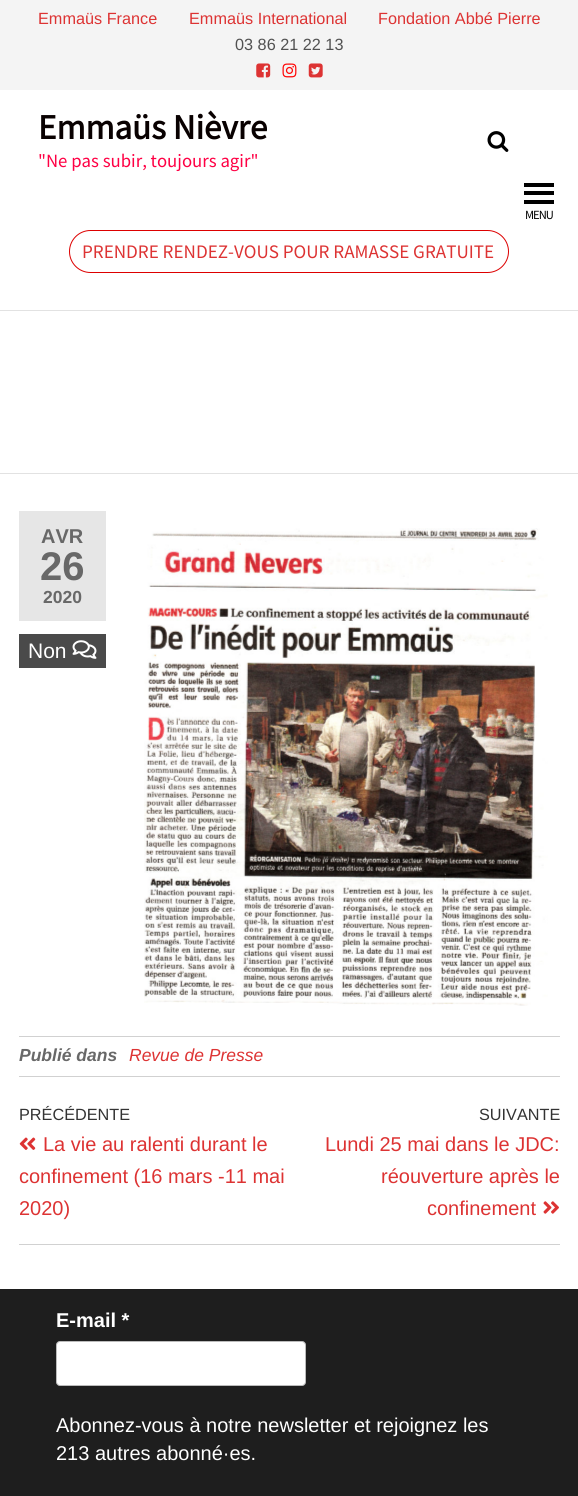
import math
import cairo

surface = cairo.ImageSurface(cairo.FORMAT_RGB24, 578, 1496)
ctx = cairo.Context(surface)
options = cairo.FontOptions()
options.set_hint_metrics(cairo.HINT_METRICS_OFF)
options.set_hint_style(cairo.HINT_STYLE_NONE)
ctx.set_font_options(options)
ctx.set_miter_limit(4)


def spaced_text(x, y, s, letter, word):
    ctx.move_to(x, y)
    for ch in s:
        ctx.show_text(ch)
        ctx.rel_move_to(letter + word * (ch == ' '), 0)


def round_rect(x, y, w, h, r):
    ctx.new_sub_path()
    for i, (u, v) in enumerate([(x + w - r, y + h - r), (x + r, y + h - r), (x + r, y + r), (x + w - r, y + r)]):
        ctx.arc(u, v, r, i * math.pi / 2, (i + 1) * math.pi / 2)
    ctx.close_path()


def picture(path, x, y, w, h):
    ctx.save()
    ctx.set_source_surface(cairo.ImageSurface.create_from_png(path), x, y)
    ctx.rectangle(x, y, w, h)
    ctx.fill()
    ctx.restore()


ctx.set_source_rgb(1, 1, 1)
ctx.paint()
ctx.set_source_rgb(0.957, 0.957, 0.957)
ctx.rectangle(0, 0, 578, 90)
ctx.fill()
ctx.select_font_face("Liberation Sans")
ctx.set_font_size(16.25)
ctx.set_source_rgb(0.867, 0.2, 0.2)
ctx.move_to(38, 24)
ctx.show_text("Emmaüs France")
ctx.move_to(189, 24)
ctx.show_text("Emmaüs International")
ctx.move_to(378, 24)
ctx.show_text("Fondation Abbé Pierre")
ctx.set_source_rgb(0.318, 0.318, 0.318)
ctx.move_to(235, 50)
ctx.show_text("03 86 21 22 13")
picture("img1.png", 256, 63, 15, 15)
picture("img2.png", 282, 63, 15, 15)
picture("img3.png", 308, 63, 15, 15)
ctx.set_source_rgb(0.886, 0.886, 0.886)
ctx.rectangle(0, 310, 578, 1)
ctx.fill()
ctx.select_font_face("Source Sans Pro", cairo.FONT_SLANT_NORMAL, cairo.FONT_WEIGHT_BOLD)
ctx.set_font_size(35)
ctx.set_source_rgb(0.039, 0.004, 0.004)
ctx.move_to(38, 139)
ctx.show_text("Emmaüs Nièvre")
ctx.select_font_face("Source Sans Pro")
ctx.set_font_size(18.75)
ctx.set_source_rgb(1, 0, 0.267)
ctx.move_to(38, 167)
ctx.show_text("\"Ne pas subir, toujours agir\"")
ctx.set_source_rgb(0, 0, 0)
ctx.rectangle(524, 183, 30, 4)
ctx.fill()
ctx.rectangle(524, 191, 30, 4)
ctx.fill()
ctx.rectangle(524, 200, 30, 4)
ctx.fill()
ctx.set_font_size(12.5)
spaced_text(525, 219, "MENU", -1, 0)
picture("img4.png", 487, 131, 22, 21)
round_rect(69.5, 230.5, 439, 42, 21)
ctx.set_source_rgb(0.867, 0, 0)
ctx.set_line_width(1)
ctx.stroke()
ctx.set_font_size(19.1)
ctx.set_source_rgb(0.867, 0.2, 0.2)
ctx.move_to(82, 258)
ctx.show_text("PRENDRE RENDEZ-VOUS POUR RAMASSE GRATUITE")
ctx.set_source_rgb(0.886, 0.886, 0.886)
ctx.rectangle(0, 473, 578, 1)
ctx.fill()
ctx.set_source_rgb(0.902, 0.902, 0.902)
ctx.rectangle(19, 511, 87, 110)
ctx.fill()
ctx.select_font_face("Liberation Sans", cairo.FONT_SLANT_NORMAL, cairo.FONT_WEIGHT_BOLD)
ctx.set_font_size(20)
ctx.set_source_rgb(0.408, 0.408, 0.408)
ctx.move_to(41, 543)
ctx.show_text("AVR")
ctx.set_font_size(40)
ctx.move_to(40, 580)
ctx.show_text("26")
ctx.set_font_size(17.5)
ctx.move_to(43, 603)
ctx.show_text("2020")
ctx.set_source_rgb(0.29, 0.29, 0.29)
ctx.rectangle(19, 634, 87, 34)
ctx.fill()
ctx.select_font_face("Liberation Sans")
ctx.set_font_size(21)
ctx.set_source_rgb(1, 1, 1)
ctx.move_to(28, 658)
ctx.show_text("Non")
picture("img5.png", 72, 640, 25, 19)
picture("img6.png", 144, 528, 404, 478)
ctx.set_source_rgb(0.82, 0.82, 0.82)
ctx.rectangle(19, 1036, 541, 1)
ctx.fill()
ctx.rectangle(19, 1076, 541, 1)
ctx.fill()
ctx.select_font_face("Liberation Sans", cairo.FONT_SLANT_ITALIC, cairo.FONT_WEIGHT_BOLD)
ctx.set_font_size(17.5)
ctx.set_source_rgb(0.408, 0.408, 0.408)
ctx.move_to(19, 1061)
ctx.show_text("Publié dans")
ctx.select_font_face("Liberation Sans", cairo.FONT_SLANT_ITALIC)
ctx.set_source_rgb(0.867, 0.2, 0.2)
ctx.move_to(129, 1061)
ctx.show_text("Revue de Presse")
ctx.set_source_rgb(0.82, 0.82, 0.82)
ctx.rectangle(19, 1244, 541, 1)
ctx.fill()
ctx.select_font_face("Liberation Sans")
ctx.set_font_size(16.25)
ctx.set_source_rgb(0.2, 0.2, 0.2)
ctx.move_to(19, 1120)
ctx.show_text("PRÉCÉDENTE")
picture("img7.png", 19, 1137, 17, 13)
ctx.set_font_size(20)
ctx.set_source_rgb(0.867, 0.2, 0.2)
ctx.move_to(43, 1151)
ctx.show_text("La vie au ralenti durant le")
ctx.move_to(19, 1183)
ctx.show_text("confinement (16 mars -11 mai")
ctx.move_to(19, 1215)
ctx.show_text("2020)")
ctx.set_font_size(16.25)
ctx.set_source_rgb(0.2, 0.2, 0.2)
ctx.move_to(479, 1120)
ctx.show_text("SUIVANTE")
ctx.set_font_size(20)
ctx.set_source_rgb(0.867, 0.2, 0.2)
ctx.move_to(325, 1151)
ctx.show_text("Lundi 25 mai dans le JDC:")
ctx.move_to(381, 1183)
ctx.show_text("réouverture après le")
ctx.move_to(427, 1215)
ctx.show_text("confinement")
picture("img8.png", 543, 1201, 16, 13)
ctx.set_source_rgb(0.118, 0.118, 0.118)
ctx.rectangle(0, 1289, 578, 207)
ctx.fill()
ctx.select_font_face("Liberation Sans", cairo.FONT_SLANT_NORMAL, cairo.FONT_WEIGHT_BOLD)
ctx.set_source_rgb(1, 1, 1)
ctx.move_to(56, 1327)
ctx.show_text("E-mail *")
round_rect(56.5, 1341.5, 249, 44, 3.5)
ctx.fill_preserve()
ctx.set_source_rgb(0.733, 0.733, 0.733)
ctx.stroke()
ctx.select_font_face("Liberation Sans")
ctx.set_source_rgb(1, 1, 1)
ctx.move_to(56, 1432)
ctx.show_text("Abonnez-vous à notre newsletter et rejoignez les")
ctx.move_to(56, 1460)
ctx.show_text("213 autres abonné·es.")
surface.write_to_png("page.png")
